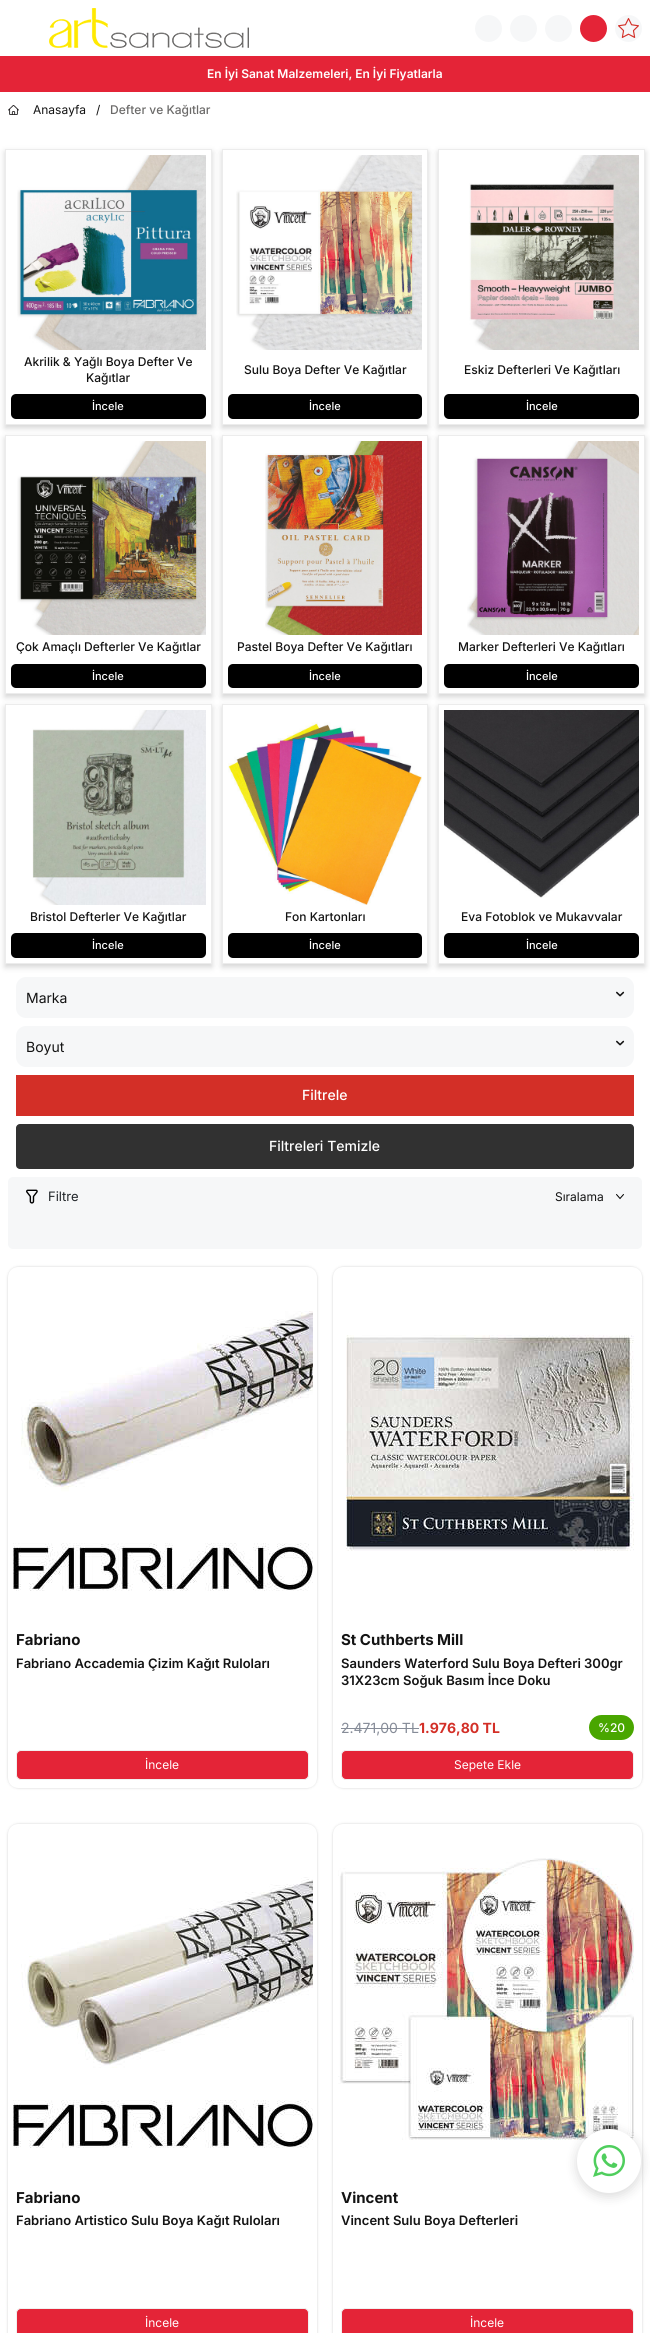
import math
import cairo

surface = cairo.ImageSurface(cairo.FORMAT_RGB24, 650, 2333)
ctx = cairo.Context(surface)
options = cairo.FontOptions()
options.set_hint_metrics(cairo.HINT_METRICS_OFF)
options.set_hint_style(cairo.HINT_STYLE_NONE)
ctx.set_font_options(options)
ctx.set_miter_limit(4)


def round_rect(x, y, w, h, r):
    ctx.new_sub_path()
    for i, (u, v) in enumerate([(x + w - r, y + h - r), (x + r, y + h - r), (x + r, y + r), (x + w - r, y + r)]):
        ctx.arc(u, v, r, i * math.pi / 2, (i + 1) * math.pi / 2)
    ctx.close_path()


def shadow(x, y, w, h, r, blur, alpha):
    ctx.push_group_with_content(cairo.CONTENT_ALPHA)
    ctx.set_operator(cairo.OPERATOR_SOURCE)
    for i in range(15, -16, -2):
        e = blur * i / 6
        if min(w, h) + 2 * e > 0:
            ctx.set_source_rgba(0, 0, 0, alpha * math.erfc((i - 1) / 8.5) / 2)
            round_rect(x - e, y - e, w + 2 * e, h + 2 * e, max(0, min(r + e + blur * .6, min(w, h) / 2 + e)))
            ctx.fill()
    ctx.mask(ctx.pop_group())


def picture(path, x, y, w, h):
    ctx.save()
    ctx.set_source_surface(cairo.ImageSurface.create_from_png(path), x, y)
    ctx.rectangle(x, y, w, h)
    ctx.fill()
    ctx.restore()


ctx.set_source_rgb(1, 1, 1)
ctx.paint()
picture("img1.png", 49, 8, 200, 40)
ctx.set_source_rgb(0.961, 0.965, 0.969)
ctx.arc(488.5, 28.5, 13.5, 0, 2 * math.pi)
ctx.fill()
ctx.arc(523.5, 28.5, 13.5, 0, 2 * math.pi)
ctx.fill()
ctx.arc(558.5, 28.5, 13.5, 0, 2 * math.pi)
ctx.fill()
ctx.set_source_rgb(0.894, 0.141, 0.216)
ctx.arc(593.5, 28.5, 13.5, 0, 2 * math.pi)
ctx.fill()
ctx.set_source_rgb(0.961, 0.965, 0.969)
ctx.arc(628.5, 28.5, 13.5, 0, 2 * math.pi)
ctx.fill()
picture("img2.png", 618, 18, 21, 20)
ctx.set_source_rgb(0.894, 0.141, 0.216)
ctx.rectangle(0, 56, 650, 36)
ctx.fill()
ctx.select_font_face("Inter SemiBold")
ctx.set_font_size(12)
ctx.set_source_rgb(1, 1, 1)
ctx.move_to(207, 78)
ctx.show_text("En İyi Sanat Malzemeleri, En İyi Fiyatlarla")
picture("img3.png", 8, 105, 11, 10)
ctx.select_font_face("Inter")
ctx.set_source_rgb(0.078, 0.078, 0.078)
ctx.move_to(33, 114)
ctx.show_text("Anasayfa")
ctx.move_to(96, 114)
ctx.show_text("/")
ctx.select_font_face("Inter Medium")
ctx.set_source_rgb(0.42, 0.416, 0.412)
ctx.move_to(110, 114)
ctx.show_text("Defter ve Kağıtlar")
ctx.save()
ctx.set_fill_rule(cairo.FILL_RULE_EVEN_ODD)
ctx.new_path()
ctx.move_to(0, 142)
ctx.line_to(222, 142)
ctx.line_to(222, 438)
ctx.line_to(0, 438)
ctx.close_path()
ctx.move_to(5, 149)
ctx.line_to(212, 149)
ctx.line_to(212, 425)
ctx.line_to(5, 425)
ctx.close_path()
ctx.clip()
ctx.set_source_rgb(0.588, 0.588, 0.588)
shadow(5, 152, 207, 276, 0, 3, 0.41)
ctx.restore()
ctx.rectangle(5.5, 149.5, 206, 275)
ctx.set_source_rgb(0.925, 0.925, 0.925)
ctx.set_line_width(1)
ctx.stroke()
picture("img4.png", 17, 155, 189, 195)
ctx.set_source_rgb(0.078, 0.078, 0.078)
ctx.move_to(24, 366)
ctx.show_text("Akrilik & Yağlı Boya Defter Ve")
ctx.move_to(86, 382)
ctx.show_text("Kağıtlar")
ctx.set_source_rgb(0, 0, 0)
round_rect(11, 394, 195, 25, 5)
ctx.fill()
ctx.set_font_size(11)
ctx.set_source_rgb(1, 1, 1)
ctx.move_to(92, 410)
ctx.show_text("İncele")
ctx.save()
ctx.set_fill_rule(cairo.FILL_RULE_EVEN_ODD)
ctx.new_path()
ctx.move_to(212, 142)
ctx.line_to(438, 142)
ctx.line_to(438, 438)
ctx.line_to(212, 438)
ctx.close_path()
ctx.move_to(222, 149)
ctx.line_to(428, 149)
ctx.line_to(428, 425)
ctx.line_to(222, 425)
ctx.close_path()
ctx.clip()
ctx.set_source_rgb(0.588, 0.588, 0.588)
shadow(222, 152, 206, 276, 0, 3, 0.41)
ctx.restore()
ctx.rectangle(222.5, 149.5, 205, 275)
ctx.set_source_rgb(0.925, 0.925, 0.925)
ctx.stroke()
picture("img5.png", 236, 155, 186, 195)
ctx.set_font_size(12)
ctx.set_source_rgb(0.078, 0.078, 0.078)
ctx.move_to(244, 374)
ctx.show_text("Sulu Boya Defter Ve Kağıtlar")
ctx.set_source_rgb(0, 0, 0)
round_rect(228, 394, 194, 25, 5)
ctx.fill()
ctx.set_font_size(11)
ctx.set_source_rgb(1, 1, 1)
ctx.move_to(309, 410)
ctx.show_text("İncele")
ctx.save()
ctx.set_fill_rule(cairo.FILL_RULE_EVEN_ODD)
ctx.new_path()
ctx.move_to(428, 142)
ctx.line_to(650, 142)
ctx.line_to(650, 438)
ctx.line_to(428, 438)
ctx.close_path()
ctx.move_to(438, 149)
ctx.line_to(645, 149)
ctx.line_to(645, 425)
ctx.line_to(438, 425)
ctx.close_path()
ctx.clip()
ctx.set_source_rgb(0.588, 0.588, 0.588)
shadow(438, 152, 207, 276, 0, 3, 0.41)
ctx.restore()
ctx.rectangle(438.5, 149.5, 206, 275)
ctx.set_source_rgb(0.925, 0.925, 0.925)
ctx.stroke()
picture("img6.png", 469, 155, 170, 195)
ctx.set_font_size(12)
ctx.set_source_rgb(0.078, 0.078, 0.078)
ctx.move_to(464, 374)
ctx.show_text("Eskiz Defterleri Ve Kağıtları")
ctx.set_source_rgb(0, 0, 0)
round_rect(444, 394, 195, 25, 5)
ctx.fill()
ctx.set_font_size(11)
ctx.set_source_rgb(1, 1, 1)
ctx.move_to(526, 410)
ctx.show_text("İncele")
ctx.save()
ctx.set_fill_rule(cairo.FILL_RULE_EVEN_ODD)
ctx.new_path()
ctx.move_to(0, 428)
ctx.line_to(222, 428)
ctx.line_to(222, 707)
ctx.line_to(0, 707)
ctx.close_path()
ctx.move_to(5, 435)
ctx.line_to(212, 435)
ctx.line_to(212, 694)
ctx.line_to(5, 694)
ctx.close_path()
ctx.clip()
ctx.set_source_rgb(0.588, 0.588, 0.588)
shadow(5, 438, 207, 259, 0, 3, 0.41)
ctx.restore()
ctx.rectangle(5.5, 435.5, 206, 258)
ctx.set_source_rgb(0.925, 0.925, 0.925)
ctx.stroke()
picture("img7.png", 17, 441, 189, 194)
ctx.set_font_size(12)
ctx.set_source_rgb(0.078, 0.078, 0.078)
ctx.move_to(16, 651)
ctx.show_text("Çok Amaçlı Defterler Ve Kağıtlar")
ctx.set_source_rgb(0, 0, 0)
round_rect(11, 664, 195, 24, 5)
ctx.fill()
ctx.set_font_size(11)
ctx.set_source_rgb(1, 1, 1)
ctx.move_to(92, 680)
ctx.show_text("İncele")
ctx.save()
ctx.set_fill_rule(cairo.FILL_RULE_EVEN_ODD)
ctx.new_path()
ctx.move_to(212, 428)
ctx.line_to(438, 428)
ctx.line_to(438, 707)
ctx.line_to(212, 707)
ctx.close_path()
ctx.move_to(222, 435)
ctx.line_to(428, 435)
ctx.line_to(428, 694)
ctx.line_to(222, 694)
ctx.close_path()
ctx.clip()
ctx.set_source_rgb(0.588, 0.588, 0.588)
shadow(222, 438, 206, 259, 0, 3, 0.41)
ctx.restore()
ctx.rectangle(222.5, 435.5, 205, 258)
ctx.set_source_rgb(0.925, 0.925, 0.925)
ctx.stroke()
picture("img8.png", 265, 441, 157, 194)
ctx.set_font_size(12)
ctx.set_source_rgb(0.078, 0.078, 0.078)
ctx.move_to(237, 651)
ctx.show_text("Pastel Boya Defter Ve Kağıtları")
ctx.set_source_rgb(0, 0, 0)
round_rect(228, 664, 194, 24, 5)
ctx.fill()
ctx.set_font_size(11)
ctx.set_source_rgb(1, 1, 1)
ctx.move_to(309, 680)
ctx.show_text("İncele")
ctx.save()
ctx.set_fill_rule(cairo.FILL_RULE_EVEN_ODD)
ctx.new_path()
ctx.move_to(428, 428)
ctx.line_to(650, 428)
ctx.line_to(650, 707)
ctx.line_to(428, 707)
ctx.close_path()
ctx.move_to(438, 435)
ctx.line_to(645, 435)
ctx.line_to(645, 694)
ctx.line_to(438, 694)
ctx.close_path()
ctx.clip()
ctx.set_source_rgb(0.588, 0.588, 0.588)
shadow(438, 438, 207, 259, 0, 3, 0.41)
ctx.restore()
ctx.rectangle(438.5, 435.5, 206, 258)
ctx.set_source_rgb(0.925, 0.925, 0.925)
ctx.stroke()
picture("img9.png", 467, 441, 172, 194)
ctx.set_font_size(12)
ctx.set_source_rgb(0.078, 0.078, 0.078)
ctx.move_to(458, 651)
ctx.show_text("Marker Defterleri Ve Kağıtları")
ctx.set_source_rgb(0, 0, 0)
round_rect(444, 664, 195, 24, 5)
ctx.fill()
ctx.set_font_size(11)
ctx.set_source_rgb(1, 1, 1)
ctx.move_to(526, 680)
ctx.show_text("İncele")
ctx.save()
ctx.set_fill_rule(cairo.FILL_RULE_EVEN_ODD)
ctx.new_path()
ctx.move_to(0, 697)
ctx.line_to(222, 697)
ctx.line_to(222, 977)
ctx.line_to(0, 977)
ctx.close_path()
ctx.move_to(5, 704)
ctx.line_to(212, 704)
ctx.line_to(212, 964)
ctx.line_to(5, 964)
ctx.close_path()
ctx.clip()
ctx.set_source_rgb(0.588, 0.588, 0.588)
shadow(5, 707, 207, 260, 0, 3, 0.41)
ctx.restore()
ctx.rectangle(5.5, 704.5, 206, 259)
ctx.set_source_rgb(0.925, 0.925, 0.925)
ctx.stroke()
picture("img10.png", 32, 710, 174, 195)
ctx.set_font_size(12)
ctx.set_source_rgb(0.078, 0.078, 0.078)
ctx.move_to(30, 921)
ctx.show_text("Bristol Defterler Ve Kağıtlar")
ctx.set_source_rgb(0, 0, 0)
round_rect(11, 933, 195, 25, 5)
ctx.fill()
ctx.set_font_size(11)
ctx.set_source_rgb(1, 1, 1)
ctx.move_to(92, 949)
ctx.show_text("İncele")
ctx.save()
ctx.set_fill_rule(cairo.FILL_RULE_EVEN_ODD)
ctx.new_path()
ctx.move_to(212, 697)
ctx.line_to(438, 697)
ctx.line_to(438, 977)
ctx.line_to(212, 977)
ctx.close_path()
ctx.move_to(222, 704)
ctx.line_to(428, 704)
ctx.line_to(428, 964)
ctx.line_to(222, 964)
ctx.close_path()
ctx.clip()
ctx.set_source_rgb(0.588, 0.588, 0.588)
shadow(222, 707, 206, 260, 0, 3, 0.41)
ctx.restore()
ctx.rectangle(222.5, 704.5, 205, 259)
ctx.set_source_rgb(0.925, 0.925, 0.925)
ctx.stroke()
picture("img11.png", 228, 722, 194, 183)
ctx.set_font_size(12)
ctx.set_source_rgb(0.078, 0.078, 0.078)
ctx.move_to(285, 921)
ctx.show_text("Fon Kartonları")
ctx.set_source_rgb(0, 0, 0)
round_rect(228, 933, 194, 25, 5)
ctx.fill()
ctx.set_font_size(11)
ctx.set_source_rgb(1, 1, 1)
ctx.move_to(309, 949)
ctx.show_text("İncele")
ctx.save()
ctx.set_fill_rule(cairo.FILL_RULE_EVEN_ODD)
ctx.new_path()
ctx.move_to(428, 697)
ctx.line_to(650, 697)
ctx.line_to(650, 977)
ctx.line_to(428, 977)
ctx.close_path()
ctx.move_to(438, 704)
ctx.line_to(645, 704)
ctx.line_to(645, 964)
ctx.line_to(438, 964)
ctx.close_path()
ctx.clip()
ctx.set_source_rgb(0.588, 0.588, 0.588)
shadow(438, 707, 207, 260, 0, 3, 0.41)
ctx.restore()
ctx.rectangle(438.5, 704.5, 206, 259)
ctx.set_source_rgb(0.925, 0.925, 0.925)
ctx.stroke()
picture("img12.png", 444, 710, 195, 188)
ctx.set_font_size(12)
ctx.set_source_rgb(0.078, 0.078, 0.078)
ctx.move_to(461, 921)
ctx.show_text("Eva Fotoblok ve Mukavvalar")
ctx.set_source_rgb(0, 0, 0)
round_rect(444, 933, 195, 25, 5)
ctx.fill()
ctx.set_font_size(11)
ctx.set_source_rgb(1, 1, 1)
ctx.move_to(526, 949)
ctx.show_text("İncele")
ctx.set_source_rgb(0.961, 0.965, 0.969)
round_rect(16, 977, 618, 41, 10)
ctx.fill()
ctx.select_font_face("Inter")
ctx.set_font_size(14)
ctx.set_source_rgb(0.078, 0.078, 0.078)
ctx.move_to(26, 1003)
ctx.show_text("Marka")
picture("img13.png", 616, 991, 9, 6)
ctx.set_source_rgb(0.961, 0.965, 0.969)
round_rect(16, 1026, 618, 41, 10)
ctx.fill()
ctx.set_source_rgb(0.078, 0.078, 0.078)
ctx.move_to(26, 1052)
ctx.show_text("Boyut")
picture("img13.png", 616, 1040, 9, 6)
ctx.set_source_rgb(0.827, 0.184, 0.153)
ctx.rectangle(16, 1075, 618, 41)
ctx.fill()
ctx.select_font_face("Inter Medium")
ctx.set_source_rgb(1, 1, 1)
ctx.move_to(302, 1100)
ctx.show_text("Filtrele")
ctx.set_source_rgb(0.192, 0.192, 0.192)
round_rect(16, 1124, 618, 45, 4)
ctx.fill()
ctx.set_source_rgb(1, 1, 1)
ctx.move_to(269, 1151)
ctx.show_text("Filtreleri Temizle")
ctx.set_source_rgb(0.961, 0.965, 0.969)
round_rect(8, 1177, 634, 72, 5)
ctx.fill()
picture("img14.png", 26, 1189, 12, 15)
ctx.select_font_face("Inter")
ctx.set_font_size(13)
ctx.set_source_rgb(0.129, 0.145, 0.161)
ctx.move_to(48, 1201)
ctx.show_text("Filtre")
picture("img15.png", 616, 1194, 8, 6)
ctx.set_font_size(12)
ctx.set_source_rgb(0.078, 0.078, 0.078)
ctx.move_to(555, 1201)
ctx.show_text("Sıralama")
ctx.set_source_rgb(0.471, 0.471, 0.471)
shadow(9, 1268, 307, 519, 9, 1.5, 0.69)
ctx.set_source_rgb(1, 1, 1)
round_rect(8, 1267, 309, 521, 10)
ctx.fill()
picture("img16.png", 13, 1311, 300, 280)
ctx.select_font_face("Inter", cairo.FONT_SLANT_NORMAL, cairo.FONT_WEIGHT_BOLD)
ctx.set_font_size(15)
ctx.set_source_rgb(0.078, 0.078, 0.078)
ctx.move_to(16, 1645)
ctx.show_text("Fabriano")
ctx.select_font_face("Inter SemiBold")
ctx.set_font_size(13)
ctx.move_to(16, 1668)
ctx.show_text("Fabriano Accademia Çizim Kağıt Ruloları")
ctx.set_source_rgb(0.894, 0.141, 0.216)
round_rect(16.5, 1750.5, 292, 29, 4.5)
ctx.fill_preserve()
ctx.set_source_rgb(0.941, 0.941, 0.941)
ctx.stroke()
ctx.select_font_face("Inter")
ctx.set_font_size(12)
ctx.set_source_rgb(1, 1, 1)
ctx.move_to(145, 1769)
ctx.show_text("İncele")
ctx.set_source_rgb(0.471, 0.471, 0.471)
shadow(334, 1268, 307, 519, 9, 1.5, 0.69)
ctx.set_source_rgb(1, 1, 1)
round_rect(333, 1267, 309, 521, 10)
ctx.fill()
picture("img17.png", 346, 1335, 288, 216)
ctx.select_font_face("Inter", cairo.FONT_SLANT_NORMAL, cairo.FONT_WEIGHT_BOLD)
ctx.set_font_size(15)
ctx.set_source_rgb(0.078, 0.078, 0.078)
ctx.move_to(341, 1645)
ctx.show_text("St Cuthberts Mill")
ctx.select_font_face("Inter SemiBold")
ctx.set_font_size(13)
ctx.move_to(341, 1668)
ctx.show_text("Saunders Waterford Sulu Boya Defteri 300gr")
ctx.move_to(341, 1685)
ctx.show_text("31X23cm Soğuk Basım İnce Doku")
ctx.select_font_face("Inter")
ctx.set_font_size(14)
ctx.set_source_rgb(0.525, 0.549, 0.596)
ctx.move_to(341, 1733)
ctx.show_text("2.471,00 TL")
ctx.rectangle(341, 1728, 78, 1)
ctx.fill()
ctx.select_font_face("Inter", cairo.FONT_SLANT_NORMAL, cairo.FONT_WEIGHT_BOLD)
ctx.set_source_rgb(0.827, 0.184, 0.153)
ctx.move_to(419, 1733)
ctx.show_text("1.976,80 TL")
ctx.set_source_rgb(0.286, 0.651, 0)
round_rect(589, 1715, 45, 25, 12.5)
ctx.fill()
ctx.select_font_face("Inter Medium")
ctx.set_font_size(12)
ctx.set_source_rgb(1, 1, 1)
ctx.move_to(598, 1732)
ctx.show_text("%20")
ctx.set_source_rgb(0.894, 0.141, 0.216)
round_rect(341.5, 1750.5, 292, 29, 4.5)
ctx.fill_preserve()
ctx.set_source_rgb(0.941, 0.941, 0.941)
ctx.stroke()
ctx.select_font_face("Inter")
ctx.set_source_rgb(1, 1, 1)
ctx.move_to(454, 1769)
ctx.show_text("Sepete Ekle")
ctx.set_source_rgb(0.471, 0.471, 0.471)
shadow(9, 1825, 307, 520, 9, 1.5, 0.69)
ctx.set_source_rgb(1, 1, 1)
round_rect(8, 1824, 309, 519, 10)
ctx.fill()
picture("img18.png", 13, 1877, 300, 271)
ctx.select_font_face("Inter", cairo.FONT_SLANT_NORMAL, cairo.FONT_WEIGHT_BOLD)
ctx.set_font_size(15)
ctx.set_source_rgb(0.078, 0.078, 0.078)
ctx.move_to(16, 2203)
ctx.show_text("Fabriano")
ctx.select_font_face("Inter SemiBold")
ctx.set_font_size(13)
ctx.move_to(16, 2225)
ctx.show_text("Fabriano Artistico Sulu Boya Kağıt Ruloları")
ctx.set_source_rgb(0.894, 0.141, 0.216)
round_rect(16.5, 2308.5, 292, 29, 4.5)
ctx.fill_preserve()
ctx.set_source_rgb(0.941, 0.941, 0.941)
ctx.stroke()
ctx.select_font_face("Inter")
ctx.set_font_size(12)
ctx.set_source_rgb(1, 1, 1)
ctx.move_to(145, 2327)
ctx.show_text("İncele")
ctx.set_source_rgb(0.471, 0.471, 0.471)
shadow(334, 1825, 307, 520, 9, 1.5, 0.69)
ctx.set_source_rgb(1, 1, 1)
round_rect(333, 1824, 309, 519, 10)
ctx.fill()
picture("img19.png", 338, 1858, 296, 282)
ctx.select_font_face("Inter", cairo.FONT_SLANT_NORMAL, cairo.FONT_WEIGHT_BOLD)
ctx.set_font_size(15)
ctx.set_source_rgb(0.078, 0.078, 0.078)
ctx.move_to(341, 2203)
ctx.show_text("Vincent")
ctx.select_font_face("Inter SemiBold")
ctx.set_font_size(13)
ctx.move_to(341, 2225)
ctx.show_text("Vincent Sulu Boya Defterleri")
ctx.set_source_rgb(0.894, 0.141, 0.216)
round_rect(341.5, 2308.5, 292, 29, 4.5)
ctx.fill_preserve()
ctx.set_source_rgb(0.941, 0.941, 0.941)
ctx.stroke()
ctx.select_font_face("Inter")
ctx.set_font_size(12)
ctx.set_source_rgb(1, 1, 1)
ctx.move_to(470, 2327)
ctx.show_text("İncele")
ctx.set_source_rgb(0, 0, 0)
shadow(577, 2132, 64, 64, 32, 6, 0.15)
ctx.set_source_rgb(1, 1, 1)
ctx.arc(609, 2161, 32, 0, 2 * math.pi)
ctx.fill()
picture("img20.png", 593, 2145, 32, 32)
surface.write_to_png("page.png")
